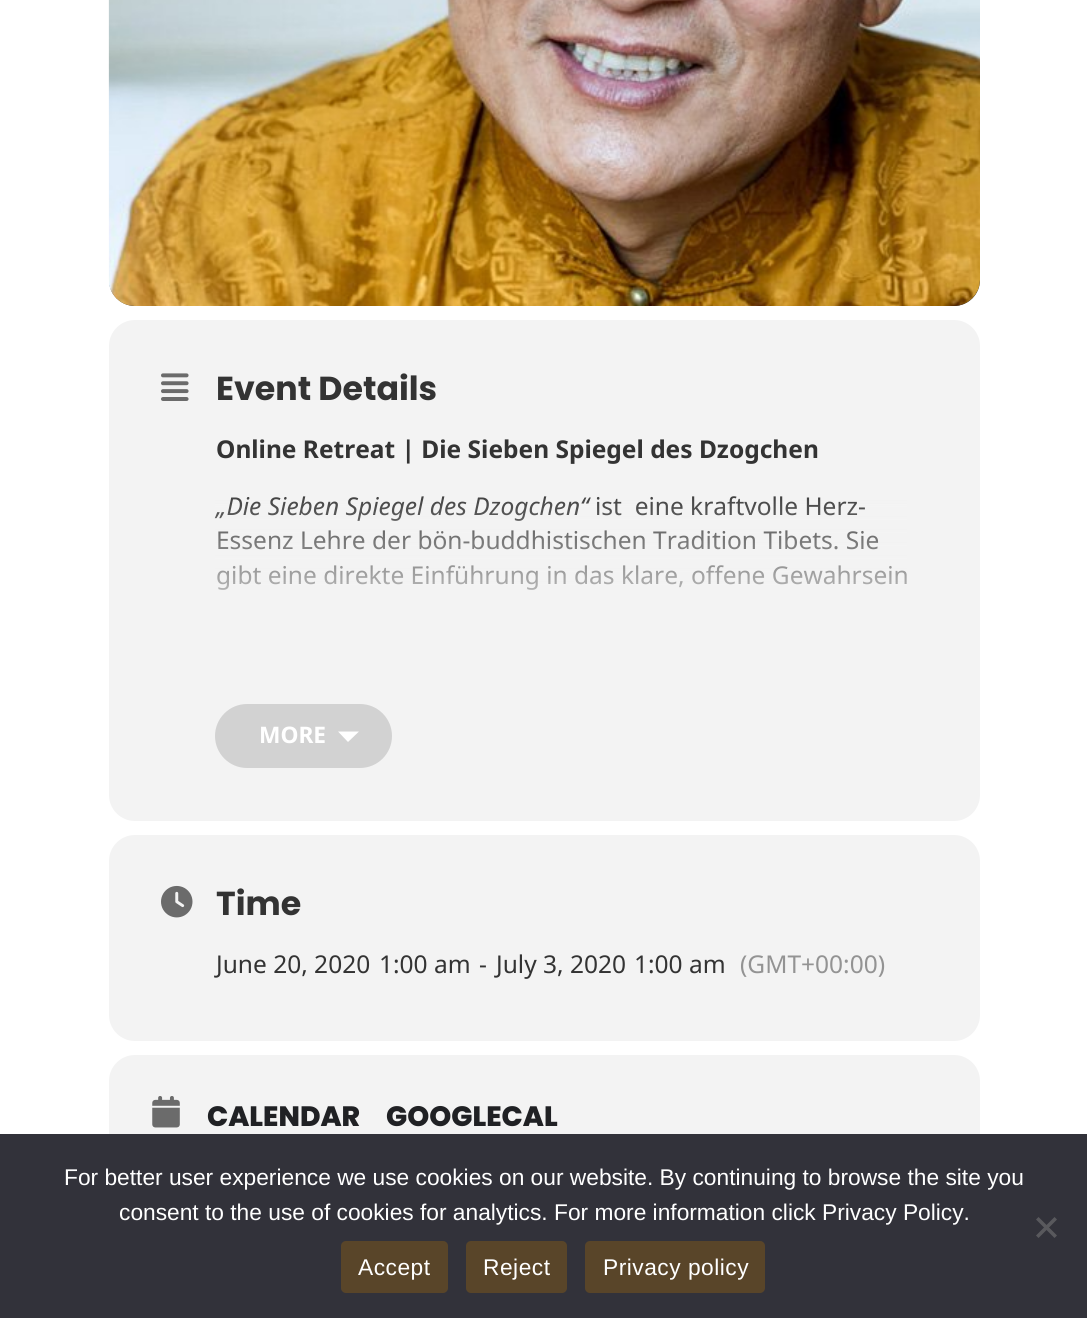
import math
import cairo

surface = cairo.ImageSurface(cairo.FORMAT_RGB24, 1087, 1318)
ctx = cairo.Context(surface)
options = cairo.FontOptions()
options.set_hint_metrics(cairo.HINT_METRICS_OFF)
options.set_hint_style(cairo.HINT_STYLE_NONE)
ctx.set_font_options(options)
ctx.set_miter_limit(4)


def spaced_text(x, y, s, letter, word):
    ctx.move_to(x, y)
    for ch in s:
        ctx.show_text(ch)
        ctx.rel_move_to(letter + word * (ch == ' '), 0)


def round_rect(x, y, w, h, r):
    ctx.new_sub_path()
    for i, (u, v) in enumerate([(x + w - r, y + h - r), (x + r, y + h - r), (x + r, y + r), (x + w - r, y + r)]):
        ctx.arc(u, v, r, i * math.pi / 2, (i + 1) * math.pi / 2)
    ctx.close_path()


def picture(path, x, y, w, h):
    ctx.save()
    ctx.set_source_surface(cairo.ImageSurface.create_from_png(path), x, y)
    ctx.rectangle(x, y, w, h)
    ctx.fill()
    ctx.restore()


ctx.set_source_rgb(1, 1, 1)
ctx.paint()
ctx.set_source_rgb(0.2, 0.2, 0.2)
round_rect(109, -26, 871, 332, 26)
ctx.fill()
picture("img1.png", 108, 0, 872, 306)
ctx.set_source_rgb(0.953, 0.953, 0.953)
round_rect(109, 320, 871, 501, 26)
ctx.fill()
picture("img2.png", 161, 373, 28, 28)
ctx.select_font_face("Poppins", cairo.FONT_SLANT_NORMAL, cairo.FONT_WEIGHT_BOLD)
ctx.set_font_size(33.25)
ctx.set_source_rgb(0.2, 0.2, 0.2)
ctx.move_to(216, 400)
ctx.show_text("Event Details")
ctx.select_font_face("Noto Sans", cairo.FONT_SLANT_NORMAL, cairo.FONT_WEIGHT_BOLD)
ctx.set_font_size(24.5)
ctx.move_to(216, 458)
ctx.show_text("Online Retreat | Die Sieben Spiegel des Dzogchen")
ctx.select_font_face("Noto Sans", cairo.FONT_SLANT_ITALIC)
ctx.move_to(216, 515)
ctx.show_text("„Die Sieben Spiegel des Dzogchen“")
ctx.select_font_face("Noto Sans")
ctx.move_to(595, 515)
ctx.show_text("ist  eine kraftvolle Herz-")
ctx.move_to(216, 549)
ctx.show_text("Essenz Lehre der bön-buddhistischen Tradition Tibets. Sie")
ctx.move_to(216, 584)
ctx.show_text("gibt eine direkte Einführung in das klare, offene Gewahrsein")
gradient = cairo.LinearGradient(571, 695, 571, 432)
gradient.add_color_stop_rgba(0.2, 0.953, 0.953, 0.953, 1)
gradient.add_color_stop_rgba(0.8, 0.953, 0.953, 0.953, 0)
ctx.set_source(gradient)
ctx.rectangle(215, 496, 692, 94)
ctx.fill()
ctx.set_source_rgb(0.824, 0.824, 0.824)
round_rect(215, 704, 177, 64, 32)
ctx.fill()
ctx.select_font_face("Noto Sans", cairo.FONT_SLANT_NORMAL, cairo.FONT_WEIGHT_BOLD)
ctx.set_font_size(22.75)
ctx.set_source_rgb(1, 1, 1)
ctx.move_to(259, 743)
ctx.show_text("MORE")
ctx.new_path()
ctx.move_to(338, 731.5)
ctx.line_to(359, 731.5)
ctx.line_to(348, 742)
ctx.close_path()
ctx.fill()
ctx.set_source_rgb(0.953, 0.953, 0.953)
round_rect(109, 835, 871, 206, 26)
ctx.fill()
picture("img3.png", 161, 885, 32, 33)
ctx.select_font_face("Poppins", cairo.FONT_SLANT_NORMAL, cairo.FONT_WEIGHT_BOLD)
ctx.set_font_size(33.25)
ctx.set_source_rgb(0.2, 0.2, 0.2)
ctx.move_to(216, 915)
ctx.show_text("Time")
ctx.select_font_face("Noto Sans")
ctx.set_font_size(24.5)
ctx.move_to(216, 973)
ctx.show_text("June 20, 2020")
ctx.move_to(379, 973)
ctx.show_text("1:00 am")
ctx.move_to(479, 973)
ctx.show_text("-")
ctx.move_to(496, 973)
ctx.show_text("July 3, 2020")
ctx.move_to(634, 973)
ctx.show_text("1:00 am")
ctx.set_source_rgb(0.576, 0.576, 0.576)
ctx.move_to(740, 973)
ctx.show_text("(GMT+00:00)")
ctx.set_source_rgb(0.953, 0.953, 0.953)
round_rect(109, 1055, 871, 114, 26)
ctx.fill()
picture("img4.png", 152, 1096, 28, 32)
ctx.select_font_face("Poppins ExtraBold")
ctx.set_font_size(28)
ctx.set_source_rgb(0.125, 0.129, 0.141)
ctx.move_to(207, 1126)
ctx.show_text("CALENDAR")
ctx.move_to(386, 1126)
ctx.show_text("GOOGLECAL")
ctx.set_source_rgb(0.196, 0.196, 0.227)
ctx.rectangle(0, 1134, 1087, 184)
ctx.fill()
ctx.select_font_face("Liberation Sans")
ctx.set_font_size(22.75)
ctx.set_source_rgb(1, 1, 1)
ctx.move_to(64, 1185)
ctx.show_text("For better user experience we use cookies on our website. By continuing to browse the site you")
ctx.move_to(119, 1220)
ctx.show_text("consent to the use of cookies for analytics. For more information click Privacy Policy.")
ctx.set_source_rgb(0.349, 0.349, 0.365)
ctx.new_path()
ctx.move_to(1054.5, 1217)
ctx.line_to(1057, 1219.5)
ctx.line_to(1038.5, 1238)
ctx.line_to(1036, 1235.5)
ctx.close_path()
ctx.fill()
ctx.new_path()
ctx.move_to(1036, 1219.5)
ctx.line_to(1038.5, 1217)
ctx.line_to(1057, 1235.5)
ctx.line_to(1054.5, 1238)
ctx.close_path()
ctx.fill()
ctx.set_source_rgb(0.349, 0.271, 0.161)
round_rect(341, 1241, 107, 52, 5)
ctx.fill()
ctx.set_source_rgb(1, 1, 1)
spaced_text(358, 1275, "Accept", 0.5, 0)
ctx.set_source_rgb(0.349, 0.271, 0.161)
round_rect(466, 1241, 101, 52, 5)
ctx.fill()
ctx.set_source_rgb(1, 1, 1)
spaced_text(483, 1275, "Reject", 0.5, 0)
ctx.set_source_rgb(0.349, 0.271, 0.161)
round_rect(585, 1241, 180, 52, 5)
ctx.fill()
ctx.set_source_rgb(1, 1, 1)
spaced_text(603, 1275, "Privacy policy", 0.5, 0)
surface.write_to_png("page.png")
